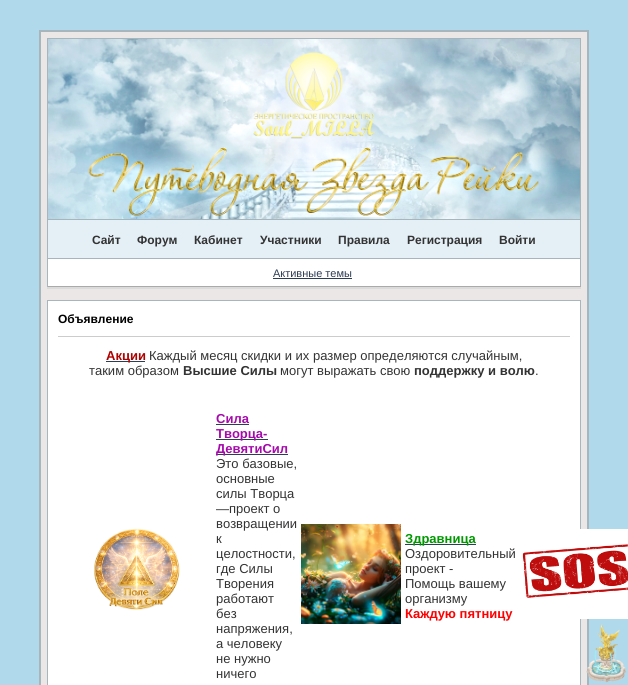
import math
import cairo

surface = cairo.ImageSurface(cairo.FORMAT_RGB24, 628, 685)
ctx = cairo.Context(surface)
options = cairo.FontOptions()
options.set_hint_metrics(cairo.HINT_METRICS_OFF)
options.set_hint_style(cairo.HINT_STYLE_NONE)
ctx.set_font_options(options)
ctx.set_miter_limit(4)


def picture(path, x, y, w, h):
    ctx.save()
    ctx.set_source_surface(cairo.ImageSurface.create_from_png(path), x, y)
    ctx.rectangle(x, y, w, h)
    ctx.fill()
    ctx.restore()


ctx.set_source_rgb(0.69, 0.851, 0.925)
ctx.paint()
ctx.set_source_rgb(0.918, 0.906, 0.906)
ctx.rectangle(40, 31, 548, 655)
ctx.fill_preserve()
ctx.set_source_rgb(0.655, 0.71, 0.741)
ctx.stroke()
picture("img1.png", 48, 39, 532, 180)
ctx.rectangle(580, 219, 1, 39)
ctx.fill()
ctx.rectangle(47, 219, 1, 39)
ctx.fill()
ctx.rectangle(47.5, 38.5, 533, 181)
ctx.set_line_width(1)
ctx.stroke()
picture("img2.png", 586, 624, 41, 59)
ctx.set_source_rgb(0.894, 0.937, 0.961)
ctx.rectangle(48, 220, 532, 38)
ctx.fill()
ctx.select_font_face("Liberation Sans", cairo.FONT_SLANT_NORMAL, cairo.FONT_WEIGHT_BOLD)
ctx.set_font_size(12)
ctx.set_source_rgb(0.2, 0.2, 0.2)
ctx.move_to(92, 244)
ctx.show_text("Сайт")
ctx.move_to(137, 244)
ctx.show_text("Форум")
ctx.move_to(194, 244)
ctx.show_text("Кабинет")
ctx.move_to(260, 244)
ctx.show_text("Участники")
ctx.move_to(338, 244)
ctx.show_text("Правила")
ctx.move_to(407, 244)
ctx.show_text("Регистрация")
ctx.move_to(499, 244)
ctx.show_text("Войти")
ctx.set_source_rgb(0.859, 0.859, 0.859)
ctx.rectangle(47, 287, 534, 2)
ctx.fill()
ctx.set_source_rgb(1, 1, 1)
ctx.rectangle(48, 259, 532, 27)
ctx.fill()
ctx.set_source_rgb(0.655, 0.71, 0.741)
ctx.rectangle(47, 258, 534, 1)
ctx.fill()
ctx.rectangle(580, 258, 1, 29)
ctx.fill()
ctx.set_source_rgb(0.667, 0.667, 0.667)
ctx.rectangle(47, 286, 534, 1)
ctx.fill()
ctx.set_source_rgb(0.655, 0.71, 0.741)
ctx.rectangle(47, 258, 1, 29)
ctx.fill()
ctx.select_font_face("Liberation Sans")
ctx.set_font_size(11)
ctx.set_source_rgb(0.176, 0.239, 0.329)
ctx.move_to(273, 277)
ctx.show_text("Активные темы")
ctx.rectangle(273, 278, 79, 1)
ctx.fill()
ctx.set_source_rgb(1, 1, 1)
ctx.rectangle(48, 301, 532, 384)
ctx.fill()
ctx.set_source_rgb(0.8, 0.8, 0.8)
ctx.rectangle(58, 336, 512, 1)
ctx.fill()
ctx.select_font_face("Liberation Sans", cairo.FONT_SLANT_NORMAL, cairo.FONT_WEIGHT_BOLD)
ctx.set_font_size(12)
ctx.set_source_rgb(0, 0, 0)
ctx.move_to(58, 323)
ctx.show_text("Объявление")
ctx.set_source_rgb(0.655, 0.71, 0.741)
ctx.rectangle(47, 300, 534, 1)
ctx.fill()
ctx.rectangle(580, 300, 1, 385)
ctx.fill()
ctx.rectangle(47, 300, 1, 385)
ctx.fill()
ctx.set_source_rgb(0.176, 0.239, 0.329)
ctx.rectangle(106, 361, 39, 1)
ctx.fill()
ctx.set_font_size(13)
ctx.set_source_rgb(0.69, 0, 0)
ctx.move_to(106, 360)
ctx.show_text("Акции")
ctx.select_font_face("Liberation Sans")
ctx.set_source_rgb(0.2, 0.2, 0.2)
ctx.move_to(149, 360)
ctx.show_text("Каждый месяц скидки и их размер определяются случайным,")
ctx.move_to(89, 375)
ctx.show_text("таким образом")
ctx.select_font_face("Liberation Sans", cairo.FONT_SLANT_NORMAL, cairo.FONT_WEIGHT_BOLD)
ctx.move_to(183, 375)
ctx.show_text("Высшие Силы")
ctx.select_font_face("Liberation Sans")
ctx.move_to(280, 375)
ctx.show_text("могут выражать свою")
ctx.select_font_face("Liberation Sans", cairo.FONT_SLANT_NORMAL, cairo.FONT_WEIGHT_BOLD)
ctx.move_to(414, 375)
ctx.show_text("поддержку и волю")
ctx.select_font_face("Liberation Sans")
ctx.move_to(535, 375)
ctx.show_text(".")
picture("img3.png", 94, 528, 86, 82)
ctx.select_font_face("Liberation Sans", cairo.FONT_SLANT_NORMAL, cairo.FONT_WEIGHT_BOLD)
ctx.set_source_rgb(0.647, 0.043, 0.671)
ctx.move_to(216, 423)
ctx.show_text("Сила")
ctx.set_source_rgb(0.176, 0.239, 0.329)
ctx.rectangle(216, 424, 33, 1)
ctx.fill()
ctx.rectangle(216, 439, 52, 1)
ctx.fill()
ctx.set_source_rgb(0.647, 0.043, 0.671)
ctx.move_to(216, 438)
ctx.show_text("Творца-")
ctx.set_source_rgb(0.176, 0.239, 0.329)
ctx.rectangle(216, 454, 72, 1)
ctx.fill()
ctx.set_source_rgb(0.647, 0.043, 0.671)
ctx.move_to(216, 453)
ctx.show_text("ДевятиСил")
ctx.select_font_face("Liberation Sans")
ctx.set_source_rgb(0.2, 0.2, 0.2)
ctx.move_to(216, 468)
ctx.show_text("Это базовые,")
ctx.move_to(216, 483)
ctx.show_text("основные")
ctx.move_to(216, 498)
ctx.show_text("силы Творца")
ctx.move_to(216, 513)
ctx.show_text("—проект о")
ctx.move_to(216, 528)
ctx.show_text("возвращении")
ctx.move_to(216, 543)
ctx.show_text("к")
ctx.move_to(216, 558)
ctx.show_text("целостности,")
ctx.move_to(216, 573)
ctx.show_text("где Силы")
ctx.move_to(216, 588)
ctx.show_text("Творения")
ctx.move_to(216, 603)
ctx.show_text("работают")
ctx.move_to(216, 618)
ctx.show_text("без")
ctx.move_to(216, 633)
ctx.show_text("напряжения,")
ctx.move_to(216, 648)
ctx.show_text("а человеку")
ctx.move_to(216, 663)
ctx.show_text("не нужно")
ctx.move_to(216, 678)
ctx.show_text("ничего")
picture("img4.png", 301, 524, 100, 100)
ctx.set_source_rgb(0.176, 0.239, 0.329)
ctx.rectangle(405, 544, 71, 1)
ctx.fill()
ctx.select_font_face("Liberation Sans", cairo.FONT_SLANT_NORMAL, cairo.FONT_WEIGHT_BOLD)
ctx.set_source_rgb(0, 0.596, 0)
ctx.move_to(405, 543)
ctx.show_text("Здравница")
ctx.select_font_face("Liberation Sans")
ctx.set_source_rgb(0.2, 0.2, 0.2)
ctx.move_to(405, 558)
ctx.show_text("Оздоровительный")
ctx.move_to(405, 573)
ctx.show_text("проект -")
ctx.move_to(405, 588)
ctx.show_text("Помощь вашему")
ctx.move_to(405, 603)
ctx.show_text("организму")
ctx.select_font_face("Liberation Sans", cairo.FONT_SLANT_NORMAL, cairo.FONT_WEIGHT_BOLD)
ctx.set_source_rgb(1, 0, 0)
ctx.move_to(405, 618)
ctx.show_text("Каждую пятницу")
picture("img5.png", 522, 529, 106, 90)
surface.write_to_png("page.png")
